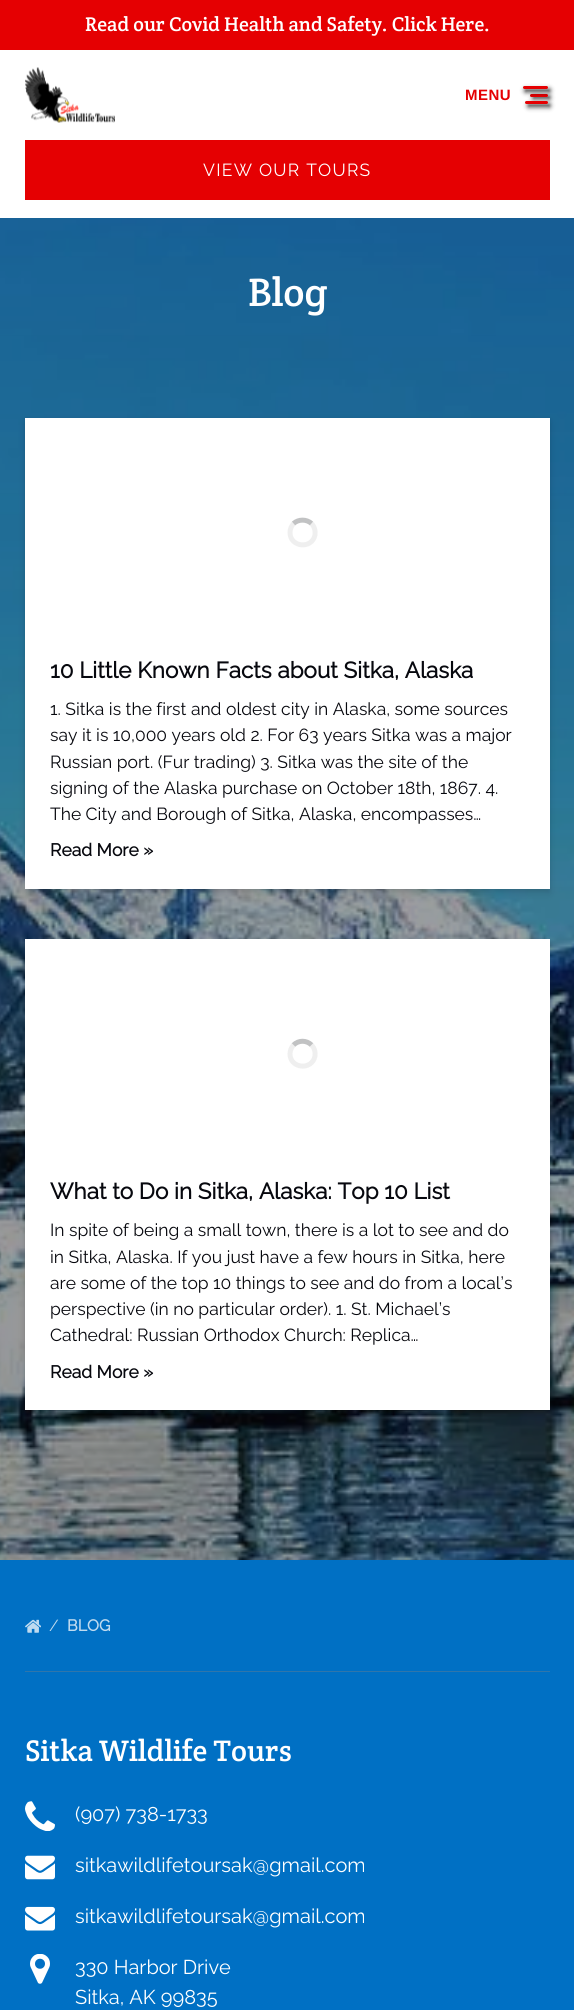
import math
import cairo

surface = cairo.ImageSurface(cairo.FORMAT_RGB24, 574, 2010)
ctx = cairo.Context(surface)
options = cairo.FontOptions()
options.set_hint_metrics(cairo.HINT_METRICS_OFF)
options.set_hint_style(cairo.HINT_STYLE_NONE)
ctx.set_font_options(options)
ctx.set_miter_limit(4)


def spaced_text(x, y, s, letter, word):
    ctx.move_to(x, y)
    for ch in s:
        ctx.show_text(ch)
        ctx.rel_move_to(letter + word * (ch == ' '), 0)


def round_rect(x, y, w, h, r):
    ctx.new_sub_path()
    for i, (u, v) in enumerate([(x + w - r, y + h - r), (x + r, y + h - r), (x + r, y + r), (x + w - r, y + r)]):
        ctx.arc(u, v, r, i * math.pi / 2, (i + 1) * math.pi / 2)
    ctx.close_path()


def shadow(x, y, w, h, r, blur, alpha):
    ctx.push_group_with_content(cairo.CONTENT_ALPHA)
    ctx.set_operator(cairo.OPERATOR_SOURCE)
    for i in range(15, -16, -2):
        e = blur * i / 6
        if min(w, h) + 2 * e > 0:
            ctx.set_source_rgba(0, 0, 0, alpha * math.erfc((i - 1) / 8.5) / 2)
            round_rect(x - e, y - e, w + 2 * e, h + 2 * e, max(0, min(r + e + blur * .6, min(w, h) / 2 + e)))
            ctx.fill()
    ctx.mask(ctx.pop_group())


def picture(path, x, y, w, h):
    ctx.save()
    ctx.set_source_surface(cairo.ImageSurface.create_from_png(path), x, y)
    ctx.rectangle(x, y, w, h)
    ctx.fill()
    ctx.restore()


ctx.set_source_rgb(1, 1, 1)
ctx.paint()
ctx.set_source_rgb(0.898, 0, 0.008)
ctx.rectangle(0, 0, 574, 50)
ctx.fill()
ctx.select_font_face("Crete Round")
ctx.set_font_size(20)
ctx.set_source_rgb(1, 1, 1)
ctx.move_to(85, 31)
ctx.show_text("Read our Covid Health and Safety. Click Here.")
picture("img1.png", 25, 67, 90, 56)
ctx.select_font_face("Liberation Sans", cairo.FONT_SLANT_NORMAL, cairo.FONT_WEIGHT_BOLD)
ctx.set_font_size(15)
ctx.set_source_rgb(0.898, 0, 0.008)
spaced_text(465, 100, "MENU", 0.5, 0)
ctx.set_source_rgb(0, 0, 0)
shadow(533, 96, 17, 3, 1.5, 2.5, 0.75)
ctx.set_source_rgb(0.898, 0, 0.008)
round_rect(530, 94, 18, 3, 1.5)
ctx.fill()
ctx.set_source_rgb(0, 0, 0)
shadow(525, 89, 25, 3, 1.5, 2.5, 0.75)
ctx.set_source_rgb(0.898, 0, 0.008)
round_rect(523, 86, 25, 3, 1.5)
ctx.fill()
ctx.set_source_rgb(0, 0, 0)
shadow(528, 104, 22, 3, 1.5, 2.5, 0.75)
ctx.set_source_rgb(0.898, 0, 0.008)
round_rect(525, 101, 23, 3, 1.5)
ctx.fill()
ctx.rectangle(25, 140, 525, 60)
ctx.fill()
ctx.select_font_face("Raleway Thin")
ctx.set_font_size(17.5)
ctx.set_source_rgb(1, 1, 1)
spaced_text(203, 176, "VIEW OUR TOURS", 1.25, 0)
picture("img2.png", 0, 218, 574, 1342)
ctx.select_font_face("Crete Round")
ctx.set_font_size(40)
ctx.move_to(248, 306)
ctx.show_text("Blog")
ctx.set_source_rgb(0, 0, 0)
shadow(25, 423, 525, 471, 0, 4, 0.1)
shadow(25, 419, 525, 471, 0, 2, 0.08)
ctx.set_source_rgb(1, 1, 1)
ctx.rectangle(25, 418, 525, 471)
ctx.fill()
ctx.new_path()
ctx.move_to(293.5, 523.5)
ctx.curve_to(298.5, 519, 306.5, 519, 311.5, 523.5)
ctx.set_source_rgb(0.757, 0.761, 0.765)
ctx.set_line_width(5)
ctx.stroke()
ctx.new_path()
ctx.move_to(311.5, 523.5)
ctx.curve_to(314.5, 526.5, 315.5, 531, 315, 535)
ctx.curve_to(312, 549.5, 290, 547.5, 290, 532.5)
ctx.curve_to(290, 529, 291.5, 526, 293.5, 523.5)
ctx.set_source_rgba(0.757, 0.761, 0.765, 0.25)
ctx.stroke()
ctx.select_font_face("Raleway", cairo.FONT_SLANT_NORMAL, cairo.FONT_WEIGHT_BOLD)
ctx.set_font_size(22.5)
ctx.set_source_rgb(0.031, 0.035, 0.055)
ctx.move_to(50, 678)
ctx.show_text("10 Little Known Facts about Sitka, Alaska")
ctx.select_font_face("Raleway Thin")
ctx.set_font_size(17.5)
ctx.move_to(50, 715)
ctx.show_text("1. Sitka is the first and oldest city in Alaska, some sources")
ctx.move_to(50, 741)
ctx.show_text("say it is 10,000 years old 2. For 63 years Sitka was a major")
ctx.move_to(50, 768)
ctx.show_text("Russian port. (Fur trading) 3. Sitka was the site of the")
ctx.move_to(50, 794)
ctx.show_text("signing of the Alaska purchase on October 18th, 1867. 4.")
ctx.move_to(50, 820)
ctx.show_text("The City and Borough of Sitka, Alaska, encompasses…")
ctx.select_font_face("Raleway", cairo.FONT_SLANT_NORMAL, cairo.FONT_WEIGHT_BOLD)
ctx.move_to(50, 856)
ctx.show_text("Read More »")
ctx.set_source_rgb(0, 0, 0)
shadow(25, 944, 525, 471, 0, 4, 0.1)
shadow(25, 940, 525, 471, 0, 2, 0.08)
ctx.set_source_rgb(1, 1, 1)
ctx.rectangle(25, 939, 525, 471)
ctx.fill()
ctx.new_path()
ctx.move_to(293.5, 1045)
ctx.curve_to(298.5, 1040, 306.5, 1040, 311.5, 1045)
ctx.set_source_rgb(0.757, 0.761, 0.765)
ctx.stroke()
ctx.new_path()
ctx.move_to(311.5, 1045)
ctx.curve_to(314.5, 1048, 315.5, 1052, 315, 1056)
ctx.curve_to(312, 1071, 290, 1068.5, 290, 1054)
ctx.curve_to(290, 1050.5, 291.5, 1047, 293.5, 1045)
ctx.set_source_rgba(0.757, 0.761, 0.765, 0.25)
ctx.stroke()
ctx.set_font_size(22.5)
ctx.set_source_rgb(0.031, 0.035, 0.055)
ctx.move_to(50, 1199)
ctx.show_text("What to Do in Sitka, Alaska: Top 10 List")
ctx.select_font_face("Raleway Thin")
ctx.set_font_size(17.5)
ctx.move_to(50, 1236)
ctx.show_text("In spite of being a small town, there is a lot to see and do")
ctx.move_to(50, 1263)
ctx.show_text("in Sitka, Alaska. If you just have a few hours in Sitka, here")
ctx.move_to(50, 1289)
ctx.show_text("are some of the top 10 things to see and do from a local’s")
ctx.move_to(50, 1315)
ctx.show_text("perspective (in no particular order). 1. St. Michael’s")
ctx.move_to(50, 1341)
ctx.show_text("Cathedral: Russian Orthodox Church: Replica…")
ctx.select_font_face("Raleway", cairo.FONT_SLANT_NORMAL, cairo.FONT_WEIGHT_BOLD)
ctx.move_to(50, 1378)
ctx.show_text("Read More »")
ctx.set_source_rgb(0, 0.439, 0.769)
ctx.rectangle(0, 1560, 574, 450)
ctx.fill()
picture("img3.png", 25, 1619, 16, 14)
ctx.select_font_face("Raleway Thin")
ctx.set_font_size(16)
ctx.set_source_rgb(0.749, 0.859, 0.941)
ctx.move_to(49, 1631)
ctx.show_text("/")
ctx.select_font_face("Raleway", cairo.FONT_SLANT_NORMAL, cairo.FONT_WEIGHT_BOLD)
ctx.move_to(67, 1631)
ctx.show_text("BLOG")
ctx.set_source_rgb(0.188, 0.463, 0.671)
ctx.rectangle(25, 1671, 525, 1)
ctx.fill()
ctx.select_font_face("Crete Round")
ctx.set_font_size(30)
ctx.set_source_rgb(1, 1, 1)
ctx.move_to(25, 1761)
ctx.show_text("Sitka Wildlife Tours")
picture("img4.png", 25, 1801, 30, 30)
ctx.select_font_face("Raleway Thin")
ctx.set_font_size(20)
ctx.move_to(75, 1821)
ctx.show_text("(907) 738-1733")
picture("img5.png", 25, 1855, 30, 25)
ctx.move_to(75, 1872)
ctx.show_text("sitkawildlifetoursak@gmail.com")
picture("img6.png", 25, 1906, 30, 25)
ctx.move_to(75, 1923)
ctx.show_text("sitkawildlifetoursak@gmail.com")
picture("img7.png", 30, 1954, 20, 30)
ctx.move_to(75, 1974)
ctx.show_text("330 Harbor Drive")
ctx.move_to(75, 2004)
ctx.show_text("Sitka, AK 99835")
surface.write_to_png("page.png")
